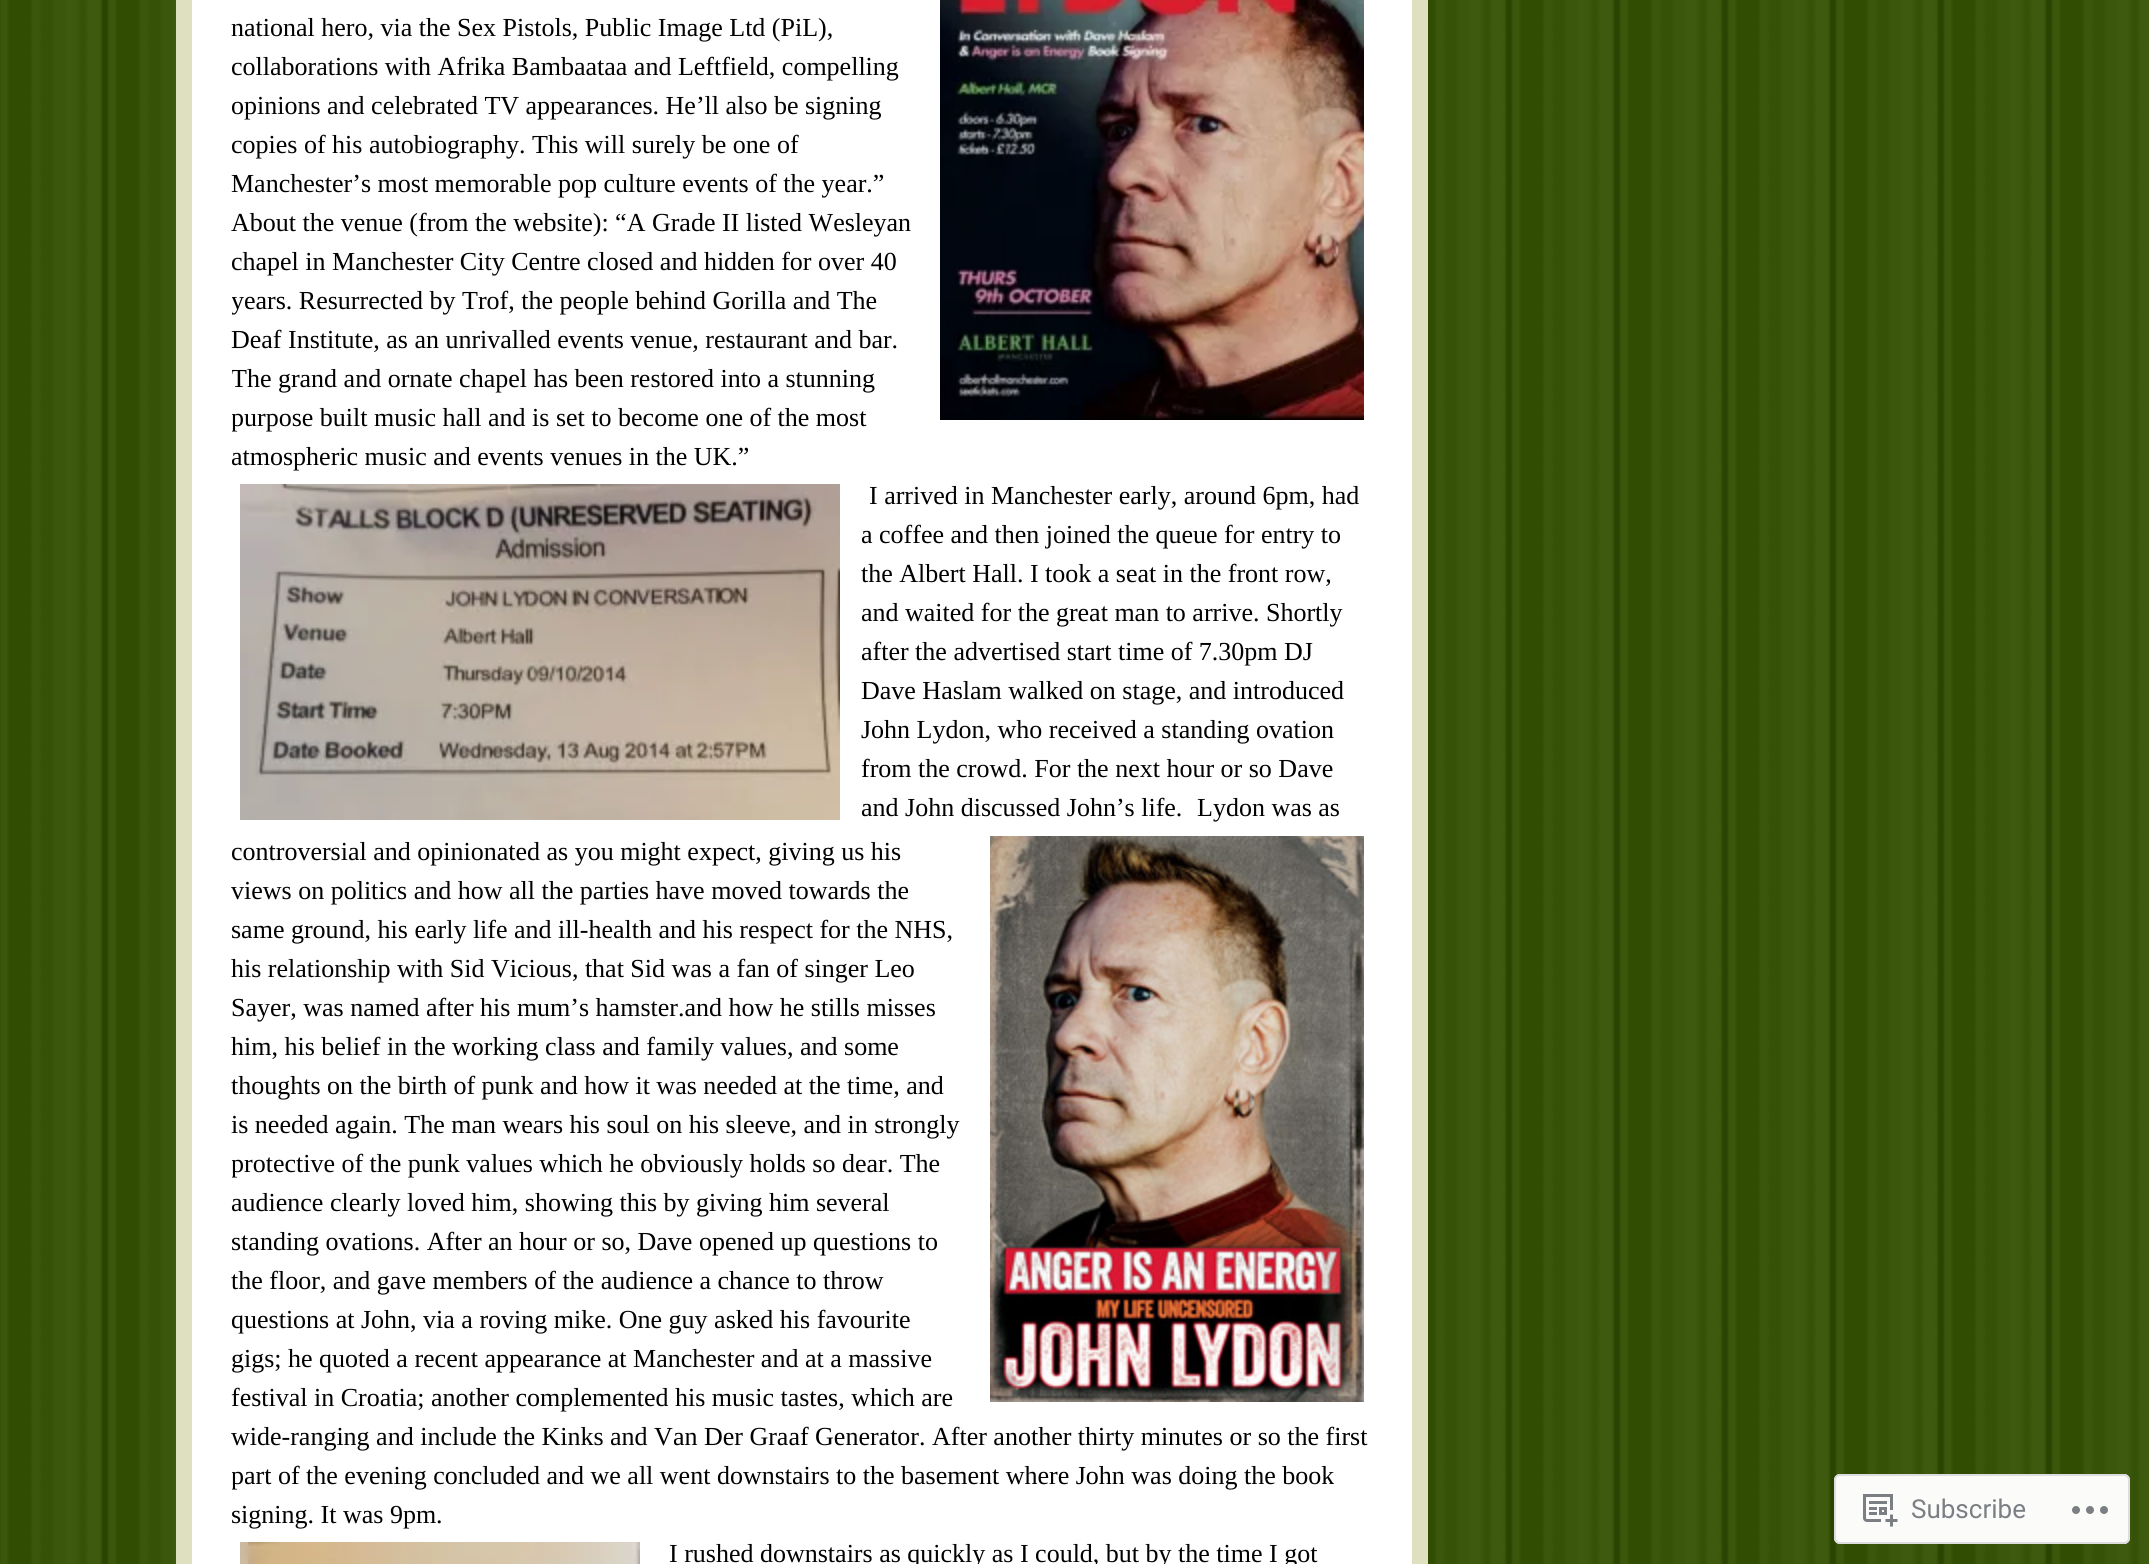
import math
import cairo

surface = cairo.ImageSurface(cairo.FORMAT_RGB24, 2149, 1564)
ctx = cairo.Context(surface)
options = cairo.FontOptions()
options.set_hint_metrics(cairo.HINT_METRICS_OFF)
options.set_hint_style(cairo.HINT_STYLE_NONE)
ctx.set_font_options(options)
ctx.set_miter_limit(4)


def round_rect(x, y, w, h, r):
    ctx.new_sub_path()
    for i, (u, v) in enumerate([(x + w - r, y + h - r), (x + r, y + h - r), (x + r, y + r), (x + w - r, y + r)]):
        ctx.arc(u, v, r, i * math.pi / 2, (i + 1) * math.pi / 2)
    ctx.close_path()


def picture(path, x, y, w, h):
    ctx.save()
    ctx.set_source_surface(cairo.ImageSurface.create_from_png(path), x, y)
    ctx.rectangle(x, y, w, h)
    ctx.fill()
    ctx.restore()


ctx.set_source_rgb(1, 1, 1)
ctx.paint()
picture("img1.png", 0, 0, 2149, 1564)
ctx.set_source_rgb(0.871, 0.878, 0.749)
ctx.rectangle(176, 0, 1252, 1564)
ctx.fill()
ctx.set_source_rgb(1, 1, 1)
ctx.rectangle(192, 0, 1220, 1564)
ctx.fill()
ctx.select_font_face("Liberation Serif")
ctx.set_font_size(26)
ctx.set_source_rgb(0, 0, 0)
ctx.move_to(231, 36)
ctx.show_text("national hero, via the Sex Pistols, Public Image Ltd (PiL),")
picture("img2.png", 940, 0, 424, 420)
ctx.move_to(231, 75)
ctx.show_text("collaborations with Afrika Bambaataa and Leftfield, compelling")
ctx.move_to(231, 114)
ctx.show_text("opinions and celebrated TV appearances. He’ll also be signing")
ctx.move_to(231, 153)
ctx.show_text("copies of his autobiography. This will surely be one of")
ctx.move_to(231, 192)
ctx.show_text("Manchester’s most memorable pop culture events of the year.”")
ctx.move_to(231, 231)
ctx.show_text("About the venue (from the website): “A Grade II listed Wesleyan")
ctx.move_to(231, 270)
ctx.show_text("chapel in Manchester City Centre closed and hidden for over 40")
ctx.save()
ctx.rectangle(232, 0, 1140, 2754)
ctx.clip()
ctx.move_to(231, 309)
ctx.show_text("years. Resurrected by Trof, the people behind Gorilla and The")
ctx.restore()
ctx.move_to(231, 348)
ctx.show_text("Deaf Institute, as an unrivalled events venue, restaurant and bar.")
ctx.save()
ctx.rectangle(232, 0, 1140, 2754)
ctx.clip()
ctx.move_to(231, 387)
ctx.show_text("The grand and ornate chapel has been restored into a stunning")
ctx.move_to(231, 426)
ctx.show_text("purpose built music hall and is set to become one of the most")
ctx.restore()
ctx.move_to(231, 465)
ctx.show_text("atmospheric music and events venues in the UK.”")
picture("img3.png", 240, 484, 600, 336)
ctx.move_to(869, 504)
ctx.show_text("I arrived in Manchester early, around 6pm, had")
ctx.move_to(861, 543)
ctx.show_text("a coffee and then joined the queue for entry to")
ctx.move_to(861, 582)
ctx.show_text("the Albert Hall. I took a seat in the front row,")
ctx.move_to(861, 621)
ctx.show_text("and waited for the great man to arrive. Shortly")
ctx.move_to(861, 660)
ctx.show_text("after the advertised start time of 7.30pm DJ")
ctx.move_to(861, 699)
ctx.show_text("Dave Haslam walked on stage, and introduced")
ctx.move_to(861, 738)
ctx.show_text("John Lydon, who received a standing ovation")
ctx.move_to(861, 777)
ctx.show_text("from the crowd. For the next hour or so Dave")
ctx.move_to(861, 816)
ctx.show_text("and John discussed John’s life.")
ctx.move_to(1197, 816)
ctx.show_text("Lydon was as")
ctx.move_to(231, 860)
ctx.show_text("controversial and opinionated as you might expect, giving us his")
picture("img4.png", 990, 836, 374, 566)
ctx.move_to(231, 899)
ctx.show_text("views on politics and how all the parties have moved towards the")
ctx.move_to(231, 938)
ctx.show_text("same ground, his early life and ill-health and his respect for the NHS,")
ctx.move_to(231, 977)
ctx.show_text("his relationship with Sid Vicious, that Sid was a fan of singer Leo")
ctx.move_to(231, 1016)
ctx.show_text("Sayer, was named after his mum’s hamster.and how he stills misses")
ctx.move_to(231, 1055)
ctx.show_text("him, his belief in the working class and family values, and some")
ctx.move_to(231, 1094)
ctx.show_text("thoughts on the birth of punk and how it was needed at the time, and")
ctx.move_to(231, 1133)
ctx.show_text("is needed again. The man wears his soul on his sleeve, and in strongly")
ctx.save()
ctx.rectangle(232, 0, 1140, 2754)
ctx.clip()
ctx.move_to(231, 1172)
ctx.show_text("protective of the punk values which he obviously holds so dear. The")
ctx.restore()
ctx.move_to(231, 1211)
ctx.show_text("audience clearly loved him, showing this by giving him several")
ctx.move_to(231, 1250)
ctx.show_text("standing ovations. After an hour or so, Dave opened up questions to")
ctx.move_to(231, 1289)
ctx.show_text("the floor, and gave members of the audience a chance to throw")
ctx.move_to(231, 1328)
ctx.show_text("questions at John, via a roving mike. One guy asked his favourite")
ctx.move_to(231, 1367)
ctx.show_text("gigs; he quoted a recent appearance at Manchester and at a massive")
ctx.move_to(231, 1406)
ctx.show_text("festival in Croatia; another complemented his music tastes, which are")
ctx.move_to(231, 1445)
ctx.show_text("wide-ranging and include the Kinks and Van Der Graaf Generator. After another thirty minutes or so the first")
ctx.save()
ctx.rectangle(232, 0, 1140, 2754)
ctx.clip()
ctx.move_to(231, 1484)
ctx.show_text("part of the evening concluded and we all went downstairs to the basement where John was doing the book")
ctx.restore()
ctx.move_to(231, 1523)
ctx.show_text("signing. It was 9pm.")
picture("img5.png", 240, 1542, 400, 22)
ctx.move_to(669, 1562)
ctx.show_text("I rushed downstairs as quickly as I could, but by the time I got")
ctx.set_source_rgba(1, 1, 1, 0.98)
round_rect(1834, 1474, 296, 70, 6)
ctx.fill()
round_rect(1835, 1475, 294, 68, 5)
ctx.set_source_rgba(0.863, 0.863, 0.871, 0.98)
ctx.stroke()
picture("img6.png", 1863, 1494, 35, 33)
ctx.select_font_face("Roboto")
ctx.set_source_rgb(0.482, 0.498, 0.518)
ctx.move_to(1911, 1518)
ctx.show_text("Subscribe")
picture("img7.png", 2072, 1506, 36, 8)
surface.write_to_png("page.png")
